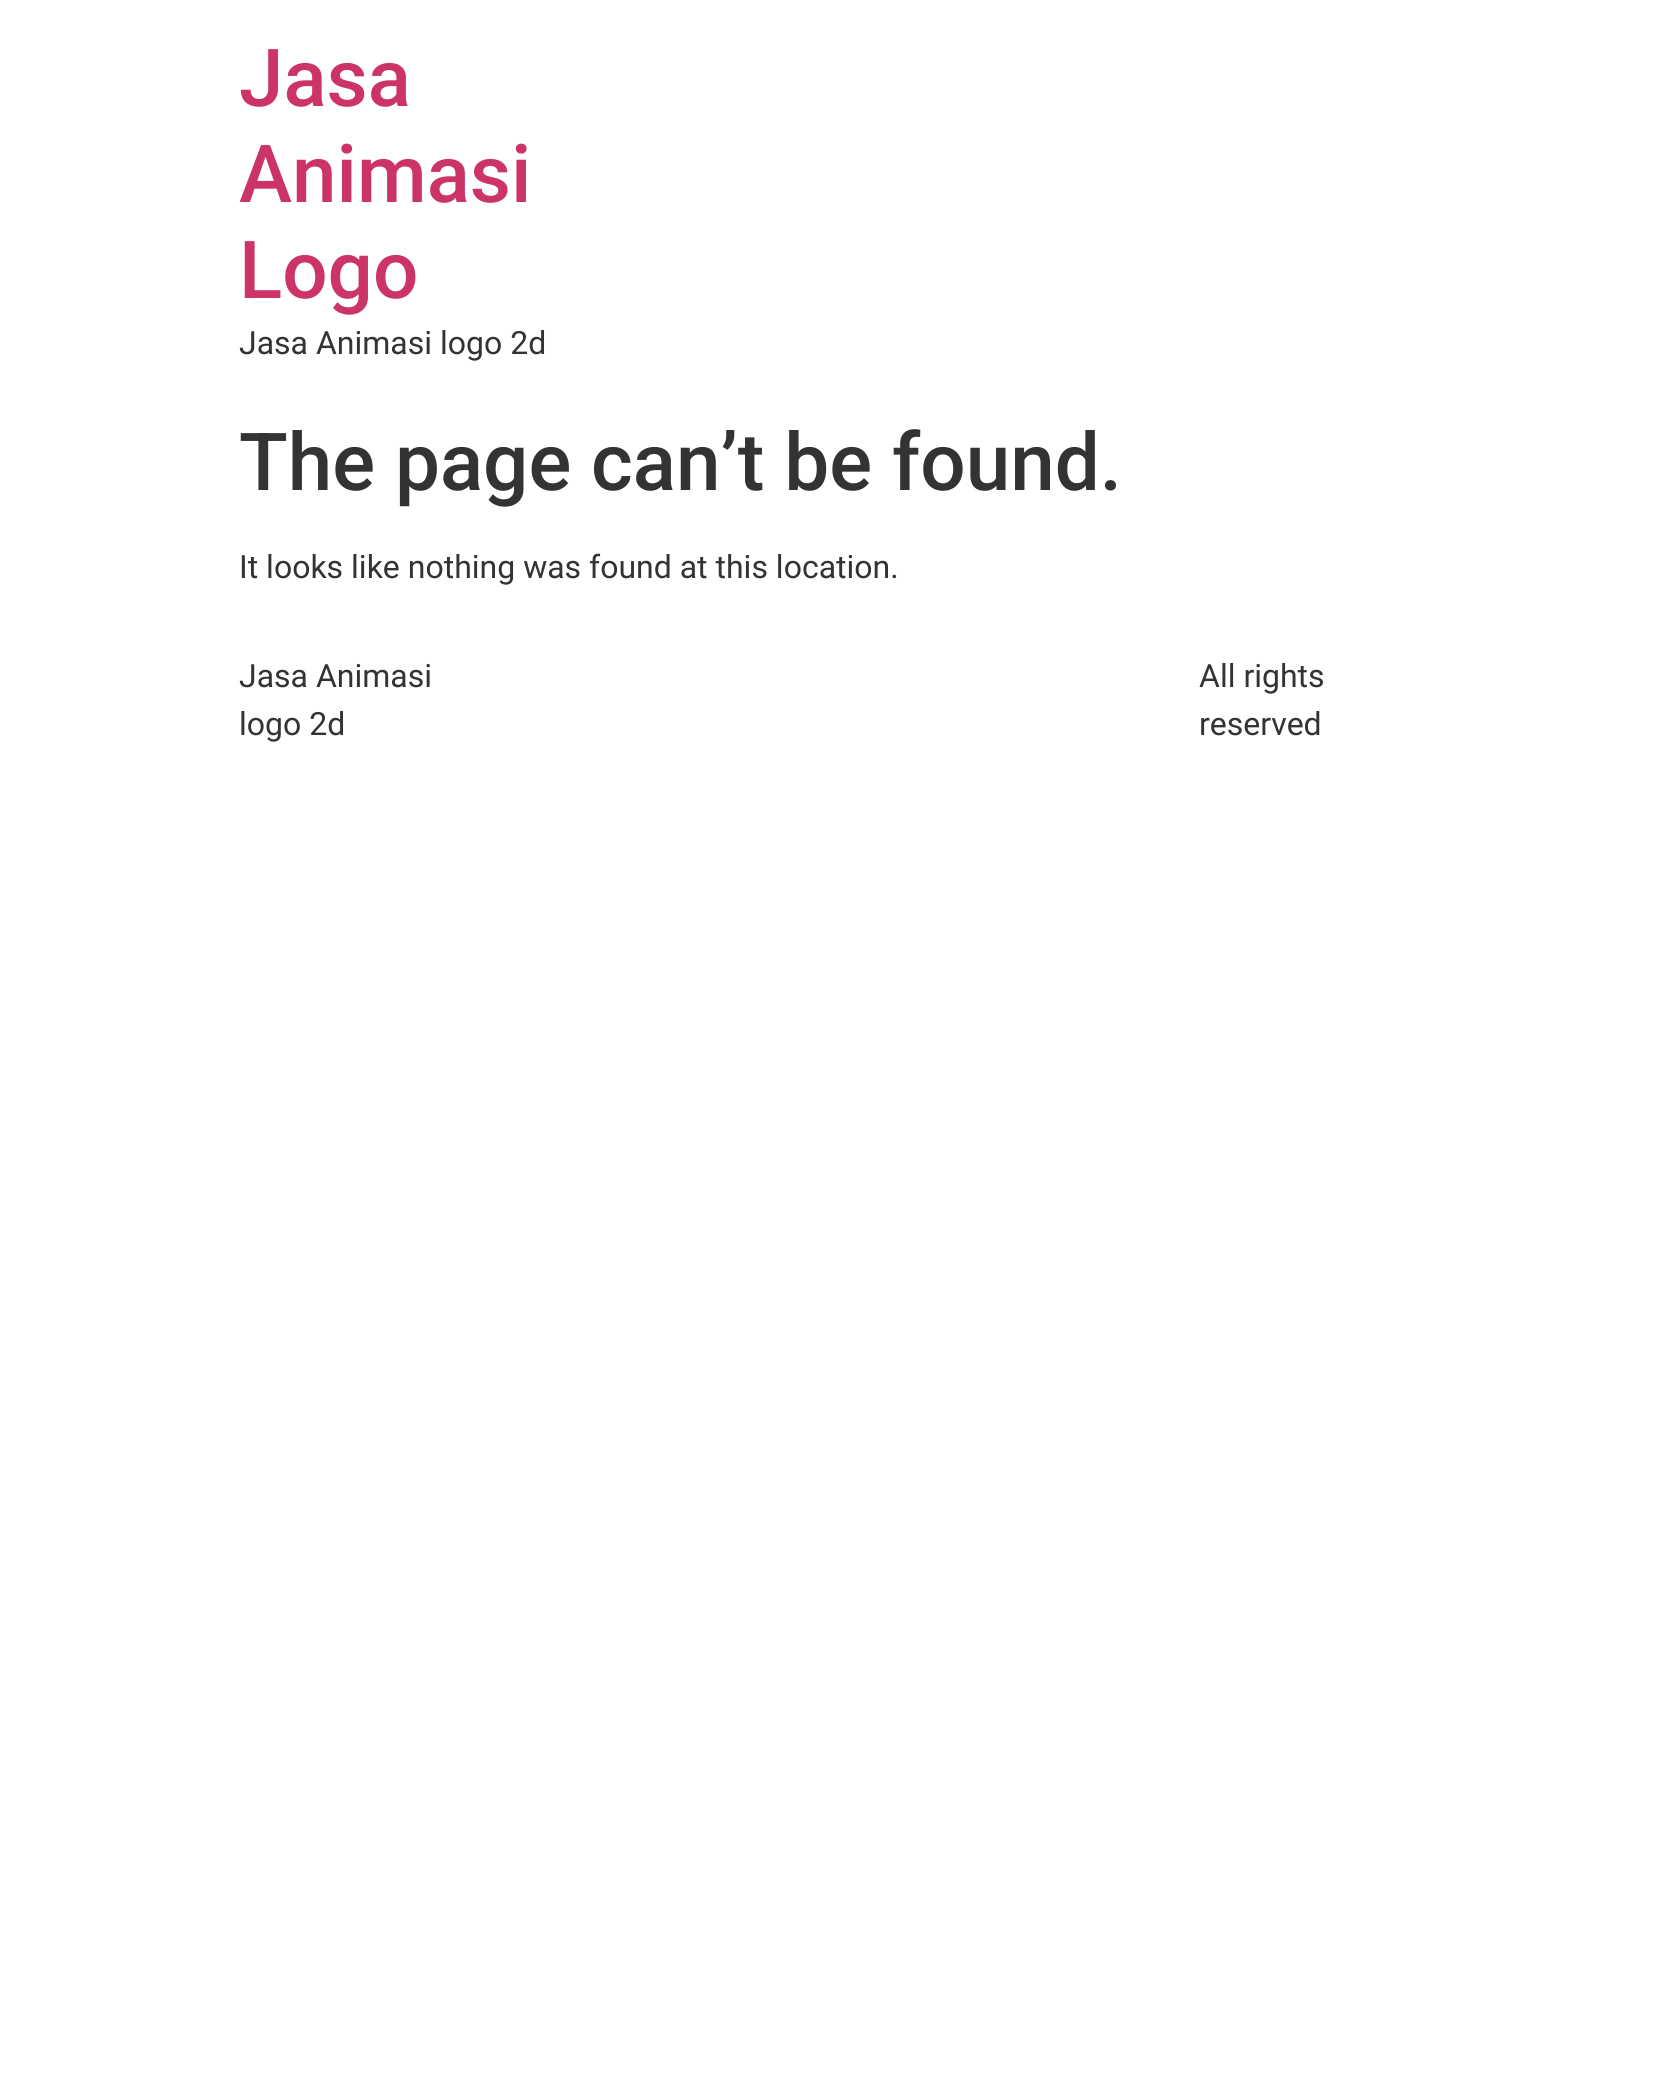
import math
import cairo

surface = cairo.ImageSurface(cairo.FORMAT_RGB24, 1678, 2083)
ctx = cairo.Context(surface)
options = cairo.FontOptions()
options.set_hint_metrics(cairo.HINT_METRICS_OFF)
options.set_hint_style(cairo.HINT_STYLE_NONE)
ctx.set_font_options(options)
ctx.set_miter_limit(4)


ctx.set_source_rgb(1, 1, 1)
ctx.paint()
ctx.select_font_face("Roboto Medium")
ctx.set_font_size(80)
ctx.set_source_rgb(0.8, 0.2, 0.4)
ctx.move_to(239, 106)
ctx.show_text("Jasa")
ctx.move_to(239, 202)
ctx.show_text("Animasi")
ctx.move_to(239, 298)
ctx.show_text("Logo")
ctx.select_font_face("Roboto")
ctx.set_font_size(32)
ctx.set_source_rgb(0.2, 0.2, 0.2)
ctx.move_to(239, 354)
ctx.show_text("Jasa Animasi logo 2d")
ctx.select_font_face("Roboto Medium")
ctx.set_font_size(80)
ctx.move_to(239, 490)
ctx.show_text("The page can’t be found.")
ctx.select_font_face("Roboto")
ctx.set_font_size(32)
ctx.move_to(239, 578)
ctx.show_text("It looks like nothing was found at this location.")
ctx.move_to(239, 687)
ctx.show_text("Jasa Animasi")
ctx.move_to(239, 735)
ctx.show_text("logo 2d")
ctx.move_to(1199, 687)
ctx.show_text("All rights")
ctx.move_to(1199, 735)
ctx.show_text("reserved")
surface.write_to_png("page.png")
